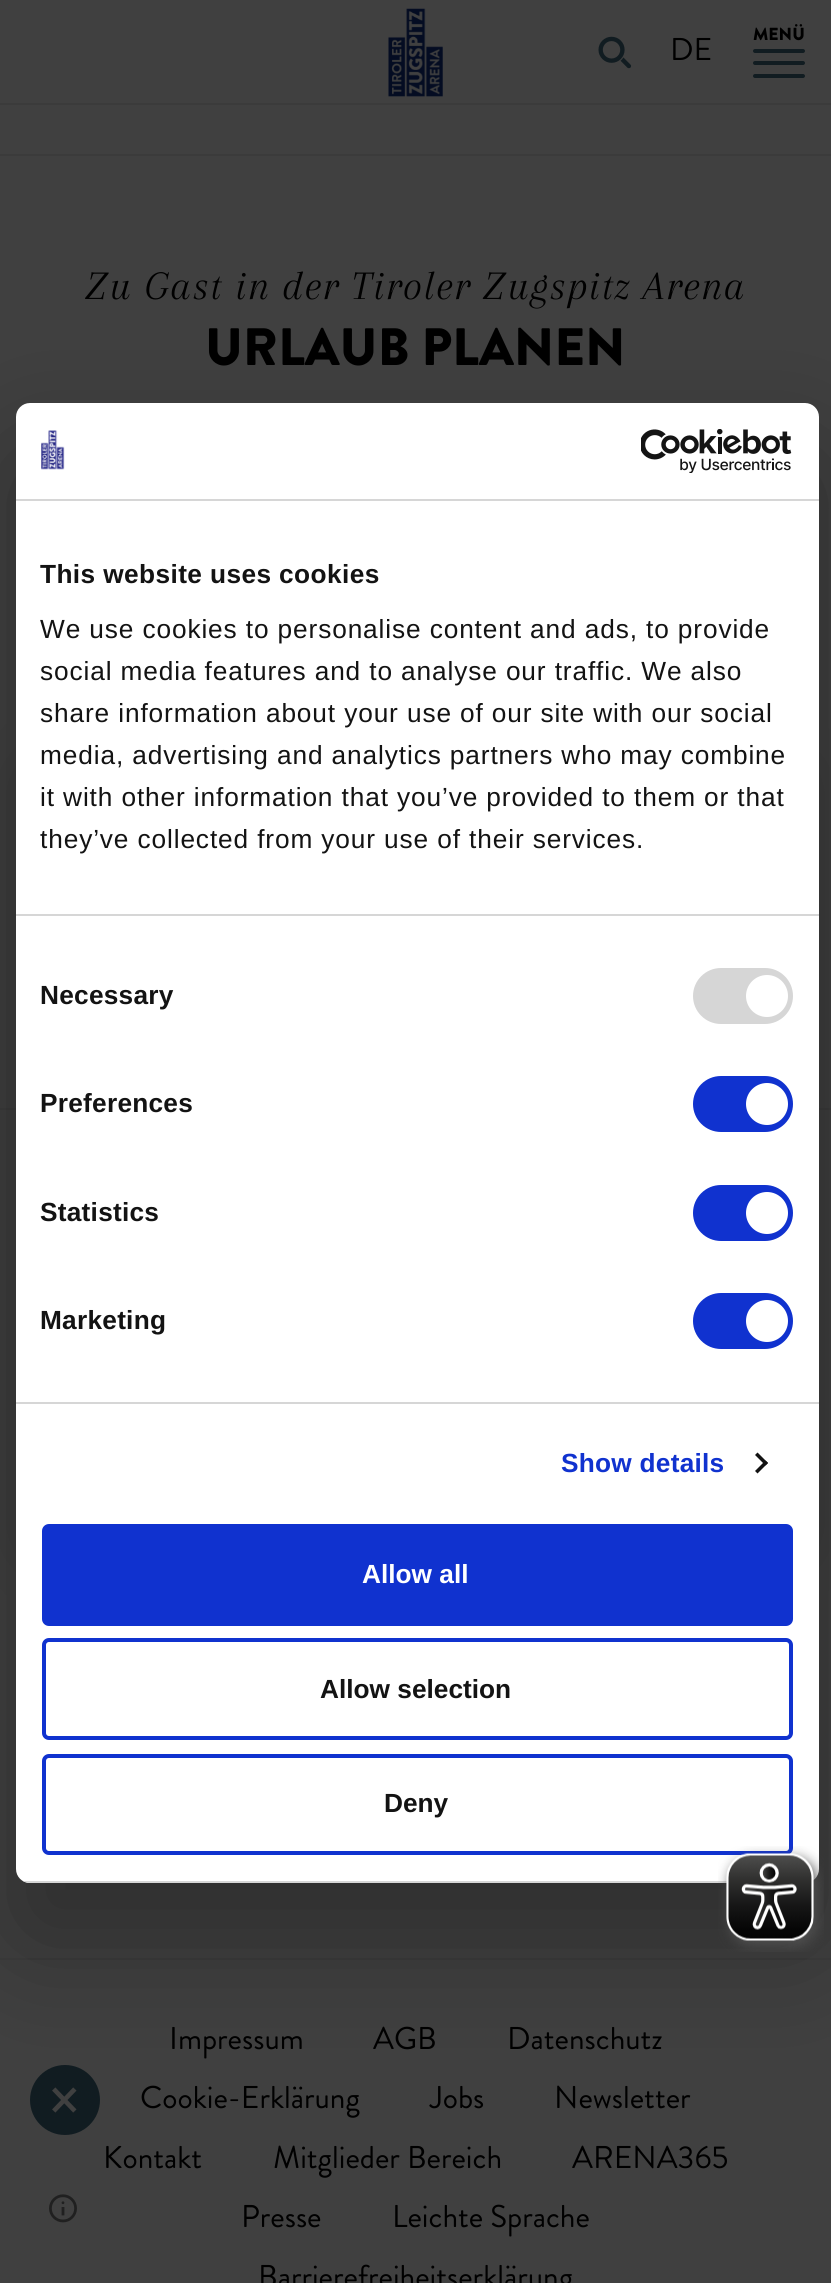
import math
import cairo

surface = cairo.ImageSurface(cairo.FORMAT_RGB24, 831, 2283)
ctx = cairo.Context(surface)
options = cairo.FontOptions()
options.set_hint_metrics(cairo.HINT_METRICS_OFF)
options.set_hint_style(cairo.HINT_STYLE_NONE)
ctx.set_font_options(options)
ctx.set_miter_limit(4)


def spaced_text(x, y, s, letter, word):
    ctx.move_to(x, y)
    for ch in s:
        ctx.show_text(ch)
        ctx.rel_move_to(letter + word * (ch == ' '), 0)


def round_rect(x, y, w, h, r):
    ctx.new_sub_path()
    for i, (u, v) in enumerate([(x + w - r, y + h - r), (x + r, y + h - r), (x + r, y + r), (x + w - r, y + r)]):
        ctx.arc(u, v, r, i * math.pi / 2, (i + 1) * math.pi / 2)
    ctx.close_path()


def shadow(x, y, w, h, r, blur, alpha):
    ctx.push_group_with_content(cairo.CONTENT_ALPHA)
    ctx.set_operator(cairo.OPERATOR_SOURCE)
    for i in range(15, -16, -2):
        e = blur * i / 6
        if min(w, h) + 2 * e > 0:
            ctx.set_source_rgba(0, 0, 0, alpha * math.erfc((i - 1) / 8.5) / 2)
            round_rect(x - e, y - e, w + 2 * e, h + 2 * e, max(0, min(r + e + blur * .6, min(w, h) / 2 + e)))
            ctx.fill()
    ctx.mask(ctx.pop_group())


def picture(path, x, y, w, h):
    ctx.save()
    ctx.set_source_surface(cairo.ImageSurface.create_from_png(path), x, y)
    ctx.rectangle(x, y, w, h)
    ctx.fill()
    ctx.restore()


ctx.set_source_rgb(0.251, 0.251, 0.251)
ctx.paint()
ctx.set_source_rgb(0.231, 0.231, 0.231)
ctx.rectangle(0, 103, 831, 2)
ctx.fill()
picture("img1.png", 388, 8, 55, 89)
ctx.select_font_face("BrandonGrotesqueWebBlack")
ctx.set_font_size(17.5)
ctx.set_source_rgb(0, 0, 0)
ctx.move_to(753, 40)
ctx.show_text("MENÜ")
ctx.set_source_rgb(0.067, 0.11, 0.129)
round_rect(753, 49, 52, 4, 2)
ctx.fill()
round_rect(753, 61, 52, 4, 2)
ctx.fill()
round_rect(753, 74, 52, 4, 2)
ctx.fill()
picture("img2.png", 598, 36, 34, 33)
ctx.select_font_face("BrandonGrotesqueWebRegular")
ctx.set_font_size(31.5)
ctx.set_source_rgb(0, 0, 0)
ctx.move_to(670, 60)
ctx.show_text("DE")
ctx.set_source_rgb(0.231, 0.231, 0.231)
ctx.rectangle(0, 154, 831, 2)
ctx.fill()
ctx.select_font_face("Arapey", cairo.FONT_SLANT_ITALIC)
ctx.set_font_size(42)
ctx.set_source_rgb(0, 0, 0)
spaced_text(85, 299, "Zu Gast in der Tiroler Zugspitz Arena", 1.4, 0)
ctx.select_font_face("BrandonGrotesqueWebBlack")
ctx.set_font_size(52.5)
ctx.move_to(205, 365)
ctx.show_text("URLAUB PLANEN")
ctx.set_source_rgb(0.235, 0.235, 0.235)
ctx.rectangle(0, 1108, 831, 2)
ctx.fill()
ctx.set_source_rgb(0, 0, 0)
shadow(35, 765, 761, 789, 14, 35, 0.2)
ctx.set_source_rgb(0.067, 0.11, 0.129)
ctx.arc(65, 2100, 35, 0, 2 * math.pi)
ctx.fill()
picture("img3.png", 52, 2087, 25, 26)
picture("img4.png", 49, 2194, 28, 29)
ctx.set_source_rgb(0.235, 0.235, 0.235)
ctx.rectangle(0, 1958, 831, 2)
ctx.fill()
ctx.select_font_face("BrandonGrotesqueWebRegular")
ctx.set_font_size(31.5)
ctx.set_source_rgb(0, 0, 0)
ctx.move_to(169, 2049)
ctx.show_text("Impressum")
ctx.move_to(373, 2049)
ctx.show_text("AGB")
ctx.move_to(507, 2049)
ctx.show_text("Datenschutz")
ctx.move_to(140, 2108)
ctx.show_text("Cookie-Erklärung")
ctx.move_to(430, 2108)
ctx.show_text("Jobs")
ctx.move_to(554, 2108)
ctx.show_text("Newsletter")
ctx.move_to(103, 2168)
ctx.show_text("Kontakt")
ctx.move_to(273, 2168)
ctx.show_text("Mitglieder Bereich")
ctx.move_to(572, 2168)
ctx.show_text("ARENA365")
ctx.move_to(241, 2227)
ctx.show_text("Presse")
ctx.move_to(392, 2227)
ctx.show_text("Leichte Sprache")
ctx.move_to(258, 2287)
ctx.show_text("Barrierefreiheitserklärung")
ctx.set_source_rgb(0, 0, 0)
shadow(16, 459, 803, 1480, 14, 59.5, 0.3)
ctx.set_source_rgb(1, 1, 1)
round_rect(16, 403, 803, 1480, 14)
ctx.fill()
ctx.set_source_rgb(0.839, 0.839, 0.839)
ctx.rectangle(16, 499, 803, 2)
ctx.fill()
picture("img5.png", 41, 430, 24, 40)
picture("img6.png", 641, 429, 151, 44)
ctx.rectangle(16, 914, 803, 2)
ctx.fill()
ctx.select_font_face("Liberation Sans", cairo.FONT_SLANT_NORMAL, cairo.FONT_WEIGHT_BOLD)
ctx.set_font_size(26.25)
ctx.set_source_rgb(0.078, 0.078, 0.078)
spaced_text(40, 583, "This website uses cookies", 0.4, 0)
ctx.select_font_face("Liberation Sans")
spaced_text(40, 638, "We use cookies to personalise content and ads, to provide", 0.88, 0)
spaced_text(40, 680, "social media features and to analyse our traffic. We also", 0.88, 0)
spaced_text(40, 722, "share information about your use of our site with our social", 0.88, 0)
spaced_text(40, 764, "media, advertising and analytics partners who may combine", 0.88, 0)
spaced_text(40, 806, "it with other information that you’ve provided to them or that", 0.88, 0)
spaced_text(40, 848, "they’ve collected from your use of their services.", 0.88, 0)
ctx.set_source_rgb(0.839, 0.839, 0.839)
ctx.rectangle(16, 1402, 803, 2)
ctx.fill()
ctx.select_font_face("Liberation Sans", cairo.FONT_SLANT_NORMAL, cairo.FONT_WEIGHT_BOLD)
ctx.set_source_rgb(0.078, 0.078, 0.078)
spaced_text(40, 1004, "Necessary", 0.25, 0)
ctx.set_source_rgb(0.839, 0.839, 0.839)
round_rect(693, 968, 100, 56, 28)
ctx.fill()
ctx.set_source_rgb(1, 1, 1)
ctx.arc(767, 996, 21, 0, 2 * math.pi)
ctx.fill()
ctx.set_source_rgb(0.078, 0.078, 0.078)
spaced_text(40, 1112, "Preferences", 0.25, 0)
ctx.set_source_rgb(0.063, 0.196, 0.812)
round_rect(693, 1076, 100, 56, 28)
ctx.fill()
ctx.set_source_rgb(1, 1, 1)
ctx.arc(767, 1104, 21, 0, 2 * math.pi)
ctx.fill()
ctx.set_source_rgb(0.078, 0.078, 0.078)
spaced_text(40, 1221, "Statistics", 0.25, 0)
ctx.set_source_rgb(0.063, 0.196, 0.812)
round_rect(693, 1185, 100, 56, 28)
ctx.fill()
ctx.set_source_rgb(1, 1, 1)
ctx.arc(767, 1213, 21, 0, 2 * math.pi)
ctx.fill()
ctx.set_source_rgb(0.078, 0.078, 0.078)
spaced_text(40, 1329, "Marketing", 0.25, 0)
ctx.set_source_rgb(0.063, 0.196, 0.812)
round_rect(693, 1293, 100, 56, 28)
ctx.fill()
ctx.set_source_rgb(1, 1, 1)
ctx.arc(767, 1321, 21, 0, 2 * math.pi)
ctx.fill()
ctx.set_source_rgb(0.063, 0.196, 0.812)
spaced_text(561, 1472, "Show details", 0.25, 0)
ctx.set_source_rgb(0.078, 0.078, 0.078)
ctx.new_path()
ctx.move_to(757.5, 1452.5)
ctx.line_to(768, 1463)
ctx.line_to(765.5, 1465.5)
ctx.line_to(755, 1455)
ctx.close_path()
ctx.fill()
ctx.new_path()
ctx.move_to(765.5, 1460.5)
ctx.line_to(768, 1463)
ctx.line_to(757.5, 1473.5)
ctx.line_to(755, 1471)
ctx.close_path()
ctx.fill()
ctx.save()
round_rect(16, 403, 803, 1480, 14)
ctx.clip()
ctx.set_source_rgb(0.839, 0.839, 0.839)
ctx.rectangle(16, 1881, 711, 2)
ctx.fill()
ctx.restore()
ctx.set_source_rgb(0.063, 0.196, 0.812)
round_rect(44, 1526, 747, 98, 5)
ctx.fill_preserve()
ctx.set_line_width(4)
ctx.stroke()
ctx.set_source_rgb(1, 1, 1)
ctx.move_to(362, 1583)
ctx.show_text("Allow all")
round_rect(44, 1640, 747, 98, 5)
ctx.set_source_rgb(0.063, 0.196, 0.812)
ctx.stroke()
ctx.set_source_rgb(0.078, 0.078, 0.078)
ctx.move_to(320, 1698)
ctx.show_text("Allow selection")
round_rect(44, 1756, 747, 97, 5)
ctx.set_source_rgb(0.063, 0.196, 0.812)
ctx.stroke()
ctx.set_source_rgb(0.078, 0.078, 0.078)
ctx.move_to(384, 1812)
ctx.show_text("Deny")
picture("img7.png", 718, 1846, 106, 106)
surface.write_to_png("page.png")
